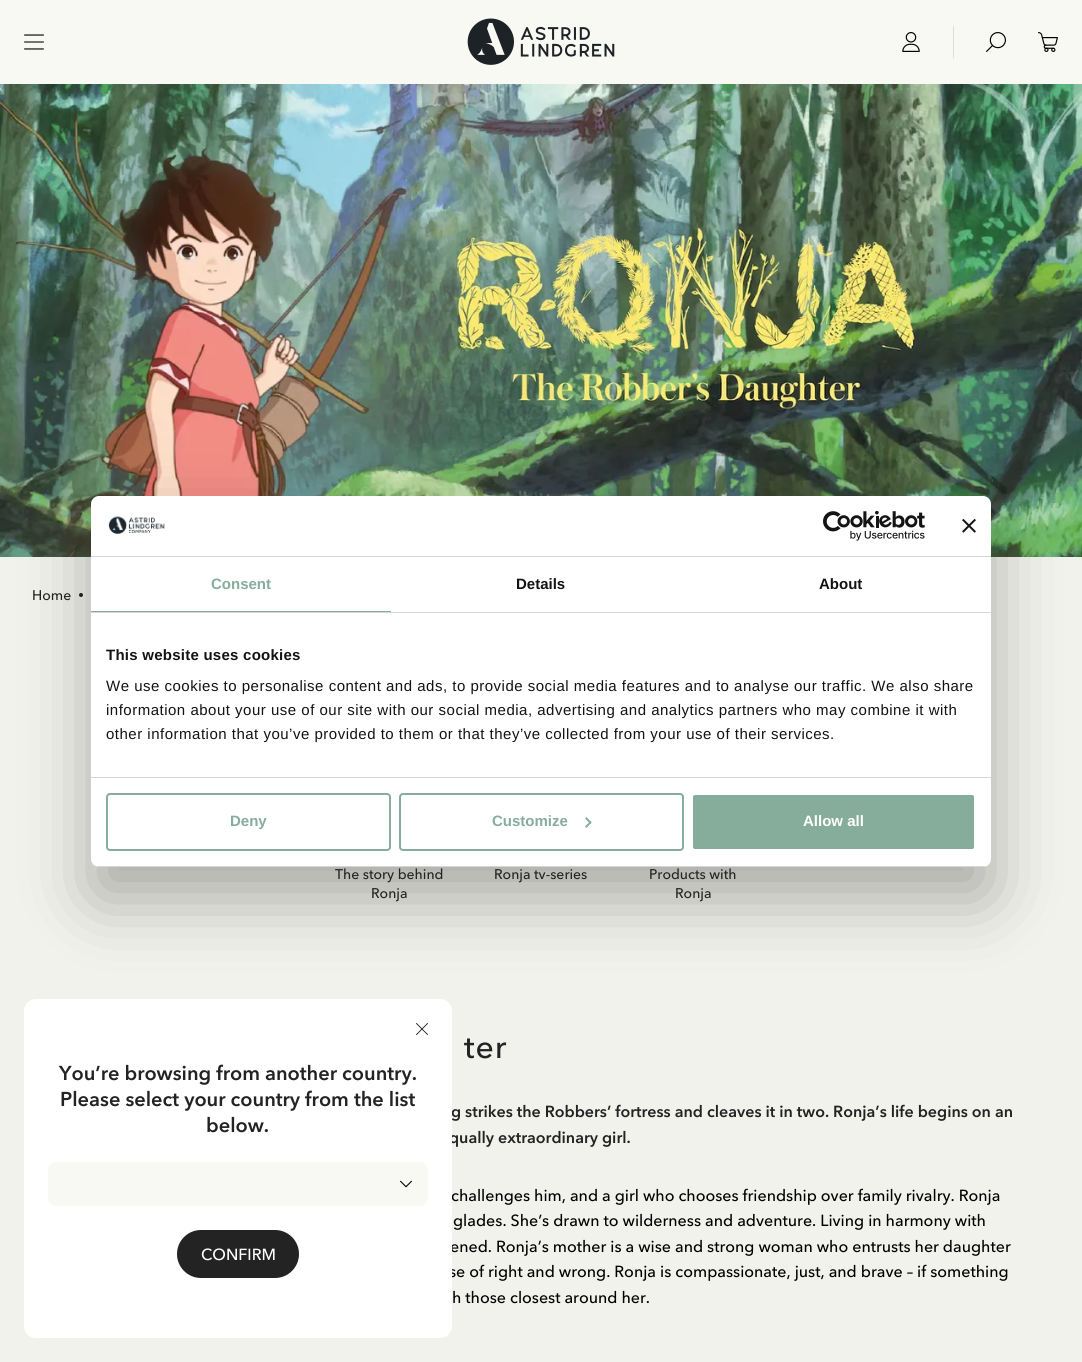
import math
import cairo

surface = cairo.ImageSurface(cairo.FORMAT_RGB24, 1082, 1362)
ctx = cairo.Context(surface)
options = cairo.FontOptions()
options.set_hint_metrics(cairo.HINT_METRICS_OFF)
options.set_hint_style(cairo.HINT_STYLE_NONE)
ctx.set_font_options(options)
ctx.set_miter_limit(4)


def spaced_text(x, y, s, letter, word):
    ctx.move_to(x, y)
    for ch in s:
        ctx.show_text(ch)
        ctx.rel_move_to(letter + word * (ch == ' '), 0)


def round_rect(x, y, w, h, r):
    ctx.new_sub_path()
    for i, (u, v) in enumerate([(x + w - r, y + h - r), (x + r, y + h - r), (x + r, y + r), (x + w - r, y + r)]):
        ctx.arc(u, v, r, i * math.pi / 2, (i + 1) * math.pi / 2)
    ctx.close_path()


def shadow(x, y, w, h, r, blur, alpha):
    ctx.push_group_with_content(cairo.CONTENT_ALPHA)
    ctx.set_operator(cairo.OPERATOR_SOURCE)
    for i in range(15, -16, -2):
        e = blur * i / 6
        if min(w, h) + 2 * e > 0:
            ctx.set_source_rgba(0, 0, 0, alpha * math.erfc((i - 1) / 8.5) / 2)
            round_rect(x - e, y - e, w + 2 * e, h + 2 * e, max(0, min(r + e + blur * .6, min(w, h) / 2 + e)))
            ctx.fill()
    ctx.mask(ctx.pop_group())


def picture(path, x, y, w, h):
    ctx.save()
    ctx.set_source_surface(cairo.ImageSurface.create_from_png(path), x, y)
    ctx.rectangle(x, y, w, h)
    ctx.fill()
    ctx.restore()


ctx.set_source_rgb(0.949, 0.949, 0.925)
ctx.paint()
ctx.set_source_rgb(0.973, 0.973, 0.953)
ctx.rectangle(0, 0, 1082, 84)
ctx.fill()
picture("img1.png", 24, 34, 20, 16)
picture("img2.png", 467, 18, 148, 47)
picture("img3.png", 902, 32, 18, 20)
ctx.set_source_rgb(0.875, 0.875, 0.843)
ctx.rectangle(953, 26, 1, 32)
ctx.fill()
picture("img4.png", 986, 32, 20, 20)
picture("img5.png", 1038, 32, 20, 20)
picture("img9.png", 0, 84, 1082, 473)
ctx.set_source_rgb(0.133, 0.137, 0.133)
ctx.arc(81, 595, 2, 0, 2 * math.pi)
ctx.fill()
ctx.select_font_face("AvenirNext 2")
ctx.set_font_size(16)
ctx.move_to(451, 1117)
ctx.show_text("g strikes the Robbers’ fortress and cleaves it in two. Ronja’s life begins on an")
ctx.move_to(449, 1143)
ctx.show_text("qually extraordinary girl.")
ctx.select_font_face("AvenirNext")
ctx.set_source_rgb(0, 0, 0)
ctx.move_to(451, 1201)
ctx.show_text("challenges him, and a girl who chooses friendship over family rivalry. Ronja")
ctx.move_to(450, 1252)
ctx.show_text("ened. Ronja’s mother is a wise and strong woman who entrusts her daughter")
ctx.move_to(449, 1277)
ctx.show_text("se of right and wrong. Ronja is compassionate, just, and brave – if something")
ctx.set_source_rgb(1, 1, 1)
round_rect(24, 999, 428, 339, 12)
ctx.fill()
ctx.set_source_rgb(0, 0, 0)
shadow(91, 528, 900, 371, 8, 34, 0.3)
ctx.set_source_rgb(1, 1, 1)
round_rect(91, 496, 900, 371, 8)
ctx.fill()
ctx.set_source_rgb(0.839, 0.839, 0.839)
ctx.rectangle(91, 556, 900, 1)
ctx.fill()
picture("img6.png", 108, 516, 57, 18)
picture("img7.png", 823, 511, 102, 30)
picture("img8.png", 962, 519, 14, 14)
ctx.rectangle(91, 612, 900, 1)
ctx.fill()
ctx.set_source_rgb(0.525, 0.678, 0.612)
ctx.rectangle(91, 611, 300, 1)
ctx.fill()
ctx.select_font_face("Liberation Sans", cairo.FONT_SLANT_NORMAL, cairo.FONT_WEIGHT_BOLD)
ctx.set_font_size(15)
ctx.move_to(211, 589)
ctx.show_text("Consent")
ctx.set_source_rgb(0.078, 0.078, 0.078)
ctx.move_to(516, 589)
ctx.show_text("Details")
ctx.move_to(819, 589)
ctx.show_text("About")
ctx.set_source_rgb(0.839, 0.839, 0.839)
ctx.rectangle(91, 777, 900, 1)
ctx.fill()
ctx.set_source_rgb(0.078, 0.078, 0.078)
spaced_text(106, 660, "This website uses cookies", 0.25, 0)
ctx.select_font_face("Liberation Sans")
spaced_text(106, 691, "We use cookies to personalise content and ads, to provide social media features and to analyse our traffic. We also share", 0.5, 0)
spaced_text(106, 715, "information about your use of our site with our social media, advertising and analytics partners who may combine it with", 0.5, 0)
spaced_text(106, 739, "other information that you’ve provided to them or that they’ve collected from your use of their services.", 0.5, 0)
ctx.save()
round_rect(91, 496, 900, 371, 8)
ctx.clip()
ctx.set_source_rgb(0.839, 0.839, 0.839)
ctx.rectangle(91, 866, 900, 1)
ctx.fill()
ctx.restore()
round_rect(107, 794, 283, 56, 3)
ctx.set_source_rgb(0.525, 0.678, 0.612)
ctx.stroke()
ctx.select_font_face("Liberation Sans", cairo.FONT_SLANT_NORMAL, cairo.FONT_WEIGHT_BOLD)
ctx.move_to(230, 826)
ctx.show_text("Deny")
round_rect(400, 794, 283, 56, 3)
ctx.stroke()
ctx.move_to(492, 826)
ctx.show_text("Customize")
ctx.new_path()
ctx.move_to(586.5, 817)
ctx.line_to(591.5, 822.5)
ctx.line_to(590.5, 824)
ctx.line_to(585, 818.5)
ctx.close_path()
ctx.fill()
ctx.new_path()
ctx.move_to(590.5, 821)
ctx.line_to(591.5, 822.5)
ctx.line_to(586.5, 828)
ctx.line_to(585, 826.5)
ctx.close_path()
ctx.fill()
round_rect(692, 794, 283, 56, 3)
ctx.fill_preserve()
ctx.set_source_rgb(1, 1, 1)
ctx.stroke()
ctx.move_to(803, 826)
ctx.show_text("Allow all")
ctx.select_font_face("AvenirNext")
ctx.set_font_size(14)
ctx.set_source_rgb(0.133, 0.137, 0.133)
ctx.move_to(32, 600)
ctx.show_text("Home")
ctx.move_to(335, 879)
ctx.show_text("The story behind")
ctx.move_to(371, 898)
ctx.show_text("Ronja")
ctx.move_to(494, 879)
ctx.show_text("Ronja tv-series")
ctx.move_to(649, 879)
ctx.show_text("Products with")
ctx.move_to(675, 898)
ctx.show_text("Ronja")
ctx.set_font_size(32)
spaced_text(464, 1058, "ter", 1, 0)
ctx.set_font_size(16)
ctx.set_source_rgb(0, 0, 0)
ctx.move_to(453, 1226)
ctx.show_text("glades. She’s drawn to wilderness and adventure. Living in harmony with")
ctx.move_to(452, 1303)
ctx.show_text("h those closest around her.")
picture("img10.png", 416, 1023, 12, 12)
ctx.select_font_face("AvenirNext 2")
ctx.set_font_size(20)
ctx.set_source_rgb(0.133, 0.137, 0.133)
ctx.move_to(59, 1080)
ctx.show_text("You’re browsing from another country.")
ctx.move_to(60, 1106)
ctx.show_text("Please select your country from the list")
ctx.move_to(206, 1132)
ctx.show_text("below.")
ctx.set_source_rgb(0.973, 0.973, 0.953)
round_rect(48, 1162, 380, 44, 8)
ctx.fill()
picture("img11.png", 400, 1180, 12, 8)
ctx.set_source_rgb(0.133, 0.137, 0.133)
round_rect(177, 1230, 122, 48, 24)
ctx.fill()
ctx.select_font_face("AvenirNext")
ctx.set_font_size(16)
ctx.set_source_rgb(1, 1, 1)
ctx.move_to(201, 1260)
ctx.show_text("CONFIRM")
surface.write_to_png("page.png")
